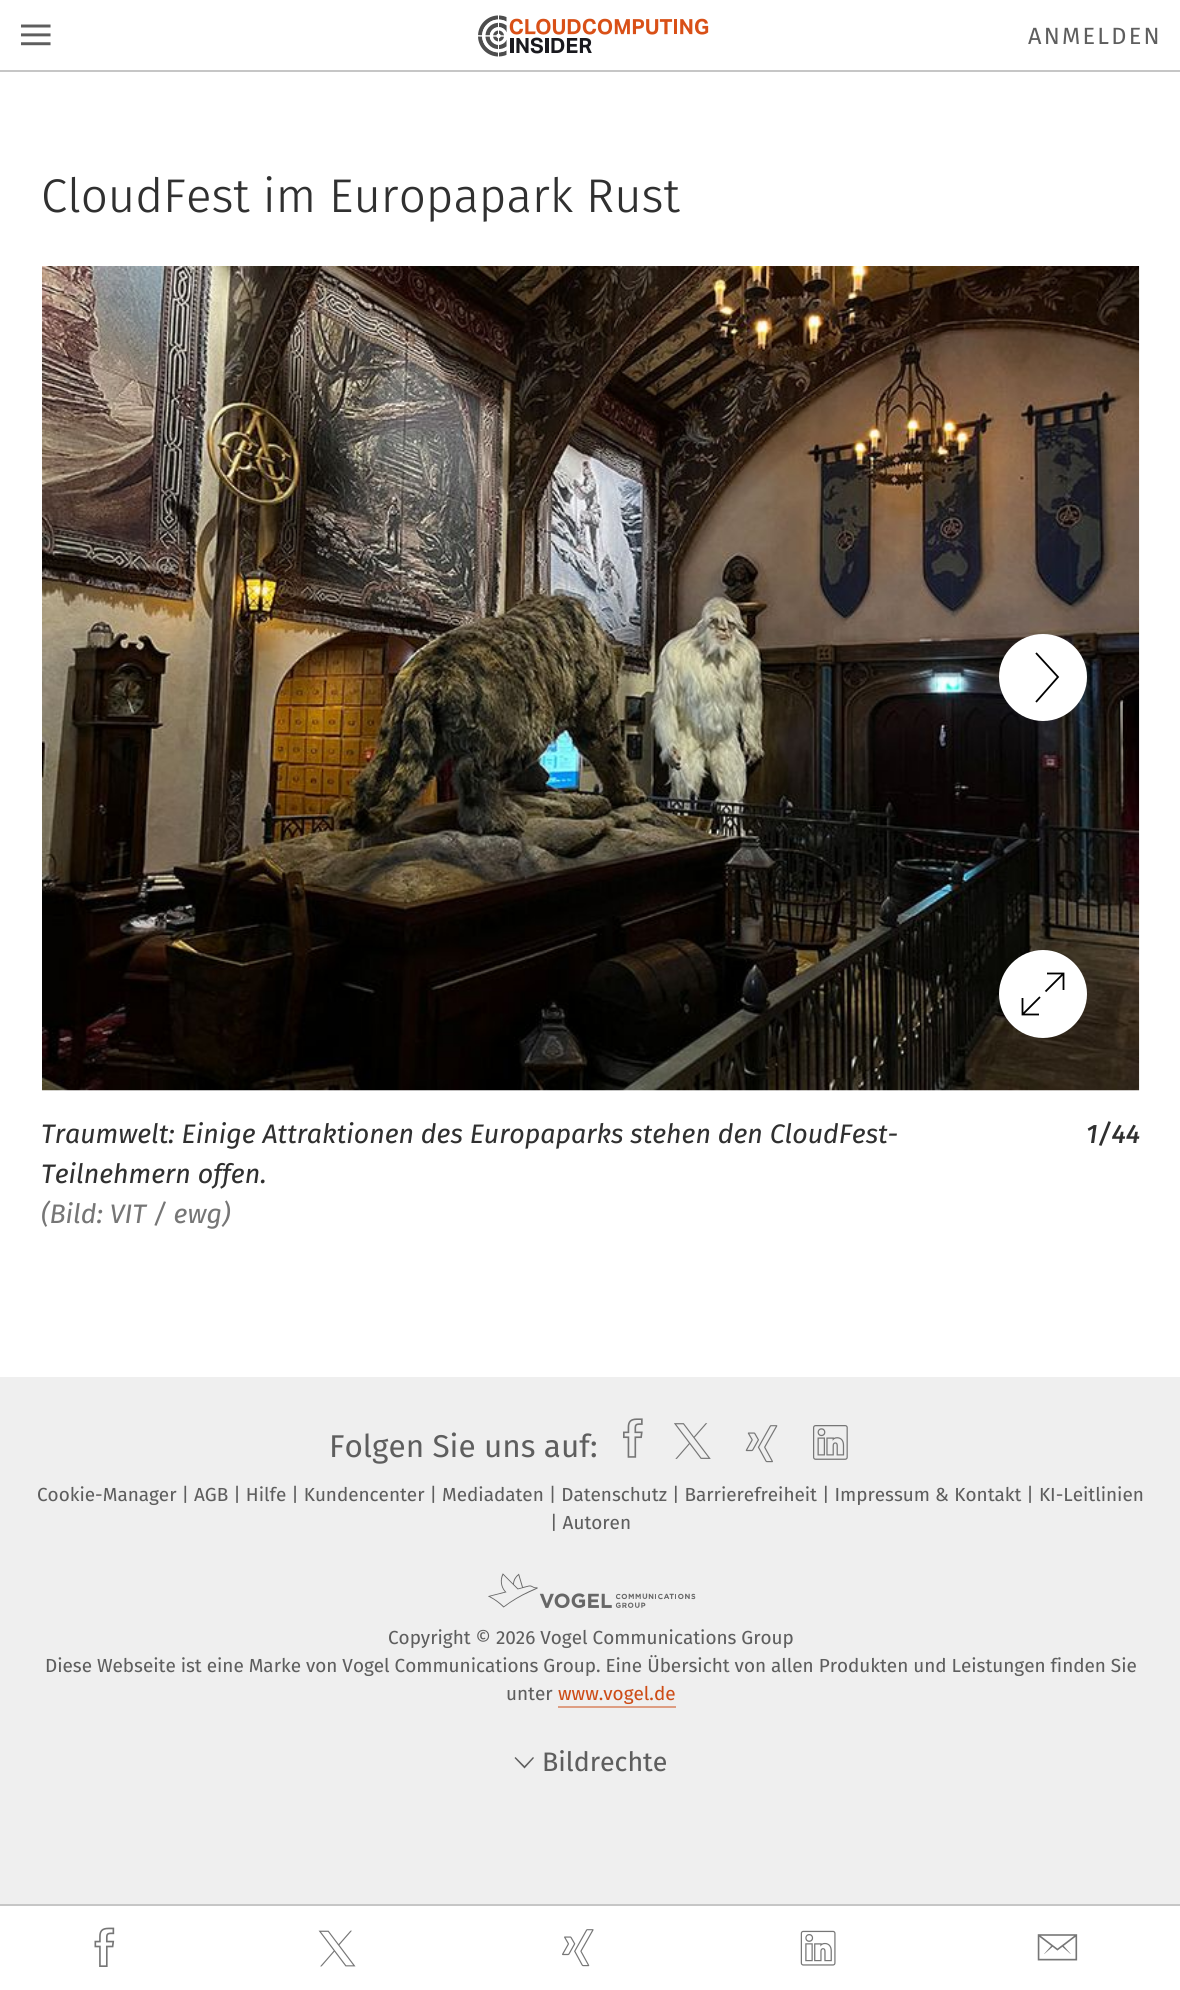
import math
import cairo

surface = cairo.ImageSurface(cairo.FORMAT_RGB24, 1180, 1990)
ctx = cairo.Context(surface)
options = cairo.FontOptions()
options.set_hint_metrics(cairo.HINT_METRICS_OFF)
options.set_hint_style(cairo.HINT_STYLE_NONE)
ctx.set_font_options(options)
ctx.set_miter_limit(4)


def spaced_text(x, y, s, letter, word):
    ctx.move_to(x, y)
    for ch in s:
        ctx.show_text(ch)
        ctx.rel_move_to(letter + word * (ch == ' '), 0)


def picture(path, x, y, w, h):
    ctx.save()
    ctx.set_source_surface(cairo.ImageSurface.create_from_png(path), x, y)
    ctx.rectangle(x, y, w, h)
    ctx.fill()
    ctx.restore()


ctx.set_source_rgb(0.937, 0.937, 0.937)
ctx.paint()
ctx.set_source_rgb(1, 1, 1)
ctx.rectangle(0, 72, 1180, 1305)
ctx.fill()
ctx.rectangle(0, 0, 1180, 70)
ctx.fill()
ctx.set_source_rgb(0.776, 0.776, 0.776)
ctx.rectangle(0, 70, 1180, 2)
ctx.fill()
picture("img1.png", 21, 24, 30, 22)
picture("img2.png", 478, 15, 231, 42)
ctx.select_font_face("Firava")
ctx.set_font_size(23.5)
ctx.set_source_rgb(0.369, 0.369, 0.369)
spaced_text(1028, 44, "ANMELDEN", 2.25, 0)
ctx.select_font_face("Firava Light")
ctx.set_font_size(47.25)
ctx.set_source_rgb(0.188, 0.188, 0.188)
ctx.move_to(41, 212)
ctx.show_text("CloudFest im Europapark Rust")
picture("img3.png", 42, 266, 1098, 825)
ctx.set_source_rgb(1, 1, 1)
ctx.new_path()
ctx.move_to(1043, 634)
ctx.curve_to(1019, 634, 999, 653, 999, 677)
ctx.curve_to(999, 701, 1019, 721, 1043, 721)
ctx.curve_to(1067, 721, 1087, 701, 1087, 677)
ctx.curve_to(1087, 653, 1067, 634, 1043, 634)
ctx.fill()
ctx.new_path()
ctx.move_to(1036, 702)
ctx.line_to(1058, 677)
ctx.line_to(1036, 653)
ctx.set_source_rgb(0, 0, 0)
ctx.set_line_width(1.8)
ctx.stroke()
ctx.set_source_rgb(1, 1, 1)
ctx.new_path()
ctx.move_to(1043, 1038)
ctx.curve_to(1067, 1038, 1087, 1018, 1087, 994)
ctx.curve_to(1087, 970, 1067, 950, 1043, 950)
ctx.curve_to(1019, 950, 999, 970, 999, 994)
ctx.curve_to(999, 1018, 1019, 1038, 1043, 1038)
ctx.fill()
ctx.new_path()
ctx.move_to(1063.5, 990)
ctx.line_to(1063.5, 973.5)
ctx.line_to(1047, 973.5)
ctx.move_to(1022.5, 998)
ctx.line_to(1022.5, 1014.5)
ctx.line_to(1039, 1014.5)
ctx.move_to(1063, 974)
ctx.line_to(1045.5, 991.5)
ctx.move_to(1040, 997)
ctx.line_to(1022.5, 1014.5)
ctx.set_source_rgb(0, 0, 0)
ctx.stroke()
ctx.select_font_face("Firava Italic", cairo.FONT_SLANT_ITALIC)
ctx.set_font_size(26.75)
ctx.set_source_rgb(0.188, 0.188, 0.188)
ctx.move_to(41, 1143)
ctx.show_text("Traumwelt: Einige Attraktionen des Europaparks stehen den CloudFest-")
ctx.move_to(41, 1183)
ctx.show_text("Teilnehmern offen.")
ctx.set_source_rgb(0.463, 0.463, 0.463)
ctx.move_to(41, 1223)
ctx.show_text("(Bild: VIT / ewg)")
ctx.select_font_face("Firava Italic Medium", cairo.FONT_SLANT_ITALIC)
ctx.set_source_rgb(0.188, 0.188, 0.188)
ctx.move_to(1086, 1143)
ctx.show_text("1/44")
ctx.set_source_rgb(1, 1, 1)
ctx.rectangle(0, 1906, 1180, 84)
ctx.fill()
ctx.set_source_rgb(0.776, 0.776, 0.776)
ctx.rectangle(0, 1904, 1180, 2)
ctx.fill()
picture("img4.png", 94, 1927, 21, 40)
picture("img5.png", 318, 1930, 38, 37)
picture("img6.png", 562, 1929, 32, 38)
picture("img7.png", 800, 1930, 36, 36)
picture("img8.png", 1037, 1934, 41, 27)
ctx.select_font_face("Firava")
ctx.set_font_size(31.5)
ctx.set_source_rgb(0.369, 0.369, 0.369)
ctx.move_to(329, 1457)
ctx.show_text("Folgen Sie uns auf:")
picture("img9.png", 623, 1418, 20, 40)
picture("img10.png", 674, 1423, 37, 36)
picture("img11.png", 745, 1425, 33, 38)
picture("img12.png", 813, 1425, 35, 35)
ctx.select_font_face("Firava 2")
ctx.set_font_size(18.9)
ctx.move_to(37, 1501)
ctx.show_text("Cookie-Manager | AGB | Hilfe | Kundencenter | Mediadaten | Datenschutz | Barrierefreiheit | Impressum & Kontakt | KI-Leitlinien")
ctx.move_to(550, 1529)
ctx.show_text("| Autoren")
picture("img13.png", 488, 1573, 208, 35)
ctx.move_to(388, 1644)
ctx.show_text("Copyright © 2026 Vogel Communications Group")
ctx.move_to(45, 1672)
ctx.show_text("Diese Webseite ist eine Marke von Vogel Communications Group. Eine Übersicht von allen Produkten und Leistungen finden Sie")
ctx.move_to(506, 1700)
ctx.show_text("unter")
ctx.set_source_rgb(0.804, 0.298, 0.086)
ctx.move_to(558, 1700)
ctx.show_text("www.vogel.de")
ctx.set_source_rgb(0.871, 0.62, 0.514)
ctx.rectangle(558, 1706, 118, 2)
ctx.fill()
ctx.set_source_rgb(0.369, 0.369, 0.369)
ctx.new_path()
ctx.move_to(533, 1757)
ctx.line_to(534, 1758)
ctx.line_to(524.5, 1768.5)
ctx.line_to(514.5, 1758)
ctx.line_to(515.5, 1757)
ctx.line_to(524.5, 1766)
ctx.close_path()
ctx.fill()
ctx.set_font_size(26.75)
ctx.move_to(542, 1771)
ctx.show_text("Bildrechte")
surface.write_to_png("page.png")
